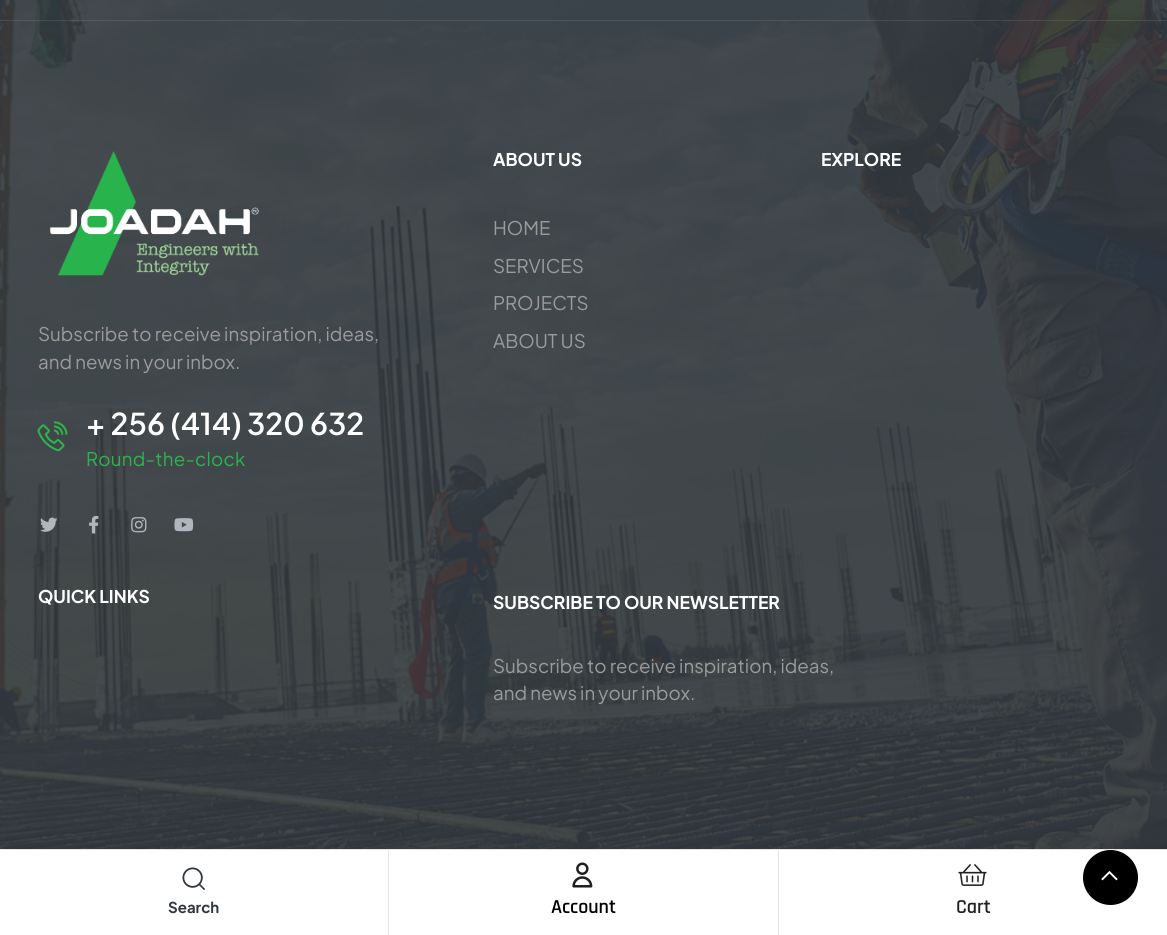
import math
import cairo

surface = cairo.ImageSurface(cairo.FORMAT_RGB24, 1167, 935)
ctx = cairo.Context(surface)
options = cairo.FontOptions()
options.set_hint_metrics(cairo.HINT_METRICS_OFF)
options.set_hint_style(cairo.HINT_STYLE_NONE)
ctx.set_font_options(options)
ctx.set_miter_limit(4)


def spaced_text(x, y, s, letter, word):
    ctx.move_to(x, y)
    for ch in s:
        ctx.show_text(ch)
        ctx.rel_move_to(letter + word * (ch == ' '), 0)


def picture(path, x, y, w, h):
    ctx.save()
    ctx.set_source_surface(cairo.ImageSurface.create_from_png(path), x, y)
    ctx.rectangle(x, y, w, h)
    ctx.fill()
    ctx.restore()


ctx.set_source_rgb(1, 1, 1)
ctx.paint()
picture("img1.png", 0, 0, 1167, 849)
ctx.set_source_rgba(1, 1, 1, 0.1)
ctx.rectangle(0, 20, 1167, 1)
ctx.fill()
ctx.select_font_face("Plus Jakarta Sans", cairo.FONT_SLANT_NORMAL, cairo.FONT_WEIGHT_BOLD)
ctx.set_font_size(17.5)
ctx.set_source_rgb(1, 1, 1)
ctx.move_to(493, 166)
ctx.show_text("ABOUT US")
ctx.select_font_face("Plus Jakarta Sans")
ctx.set_font_size(18.75)
ctx.set_source_rgb(0.608, 0.608, 0.608)
ctx.move_to(493, 235)
ctx.show_text("HOME")
ctx.move_to(493, 273)
ctx.show_text("SERVICES")
ctx.move_to(493, 310)
ctx.show_text("PROJECTS")
ctx.move_to(493, 348)
ctx.show_text("ABOUT US")
ctx.select_font_face("Plus Jakarta Sans", cairo.FONT_SLANT_NORMAL, cairo.FONT_WEIGHT_BOLD)
ctx.set_font_size(17.5)
ctx.set_source_rgb(1, 1, 1)
ctx.move_to(821, 166)
ctx.show_text("EXPLORE")
picture("img2.png", 49, 151, 210, 125)
ctx.select_font_face("Plus Jakarta Sans")
ctx.set_font_size(18.75)
ctx.set_source_rgb(0.608, 0.608, 0.608)
ctx.move_to(38, 341)
ctx.show_text("Subscribe to receive inspiration, ideas,")
ctx.move_to(38, 369)
ctx.show_text("and news in your inbox.")
picture("img3.png", 37, 421, 31, 31)
ctx.select_font_face("Plus Jakarta Sans SemiBold")
ctx.set_font_size(30)
ctx.set_source_rgb(1, 1, 1)
ctx.move_to(86, 435)
ctx.show_text("+ 256 (414) 320 632")
ctx.select_font_face("Plus Jakarta Sans")
ctx.set_font_size(18.75)
ctx.set_source_rgb(0.176, 0.702, 0.298)
spaced_text(86, 466, "Round-the-clock", 0.25, 0)
picture("img4.png", 40, 517, 18, 15)
picture("img5.png", 89, 515, 10, 19)
picture("img6.png", 131, 517, 16, 16)
picture("img7.png", 174, 518, 20, 14)
ctx.select_font_face("Plus Jakarta Sans", cairo.FONT_SLANT_NORMAL, cairo.FONT_WEIGHT_BOLD)
ctx.set_font_size(17.5)
ctx.set_source_rgb(1, 1, 1)
ctx.move_to(38, 603)
ctx.show_text("QUICK LINKS")
ctx.move_to(493, 609)
ctx.show_text("SUBSCRIBE TO OUR NEWSLETTER")
ctx.select_font_face("Plus Jakarta Sans")
ctx.set_font_size(18.75)
ctx.set_source_rgb(0.608, 0.608, 0.608)
ctx.move_to(493, 673)
ctx.show_text("Subscribe to receive inspiration, ideas,")
ctx.move_to(493, 700)
ctx.show_text("and news in your inbox.")
ctx.set_source_rgb(0.898, 0.898, 0.898)
ctx.rectangle(0, 849, 1167, 1)
ctx.fill()
ctx.rectangle(388, 850, 1, 85)
ctx.fill()
picture("img8.png", 182, 867, 23, 23)
ctx.select_font_face("Plus Jakarta Sans", cairo.FONT_SLANT_NORMAL, cairo.FONT_WEIGHT_BOLD)
ctx.set_font_size(15)
ctx.set_source_rgb(0.188, 0.216, 0.243)
ctx.move_to(168, 913)
ctx.show_text("Search")
ctx.set_source_rgb(0.898, 0.898, 0.898)
ctx.rectangle(778, 850, 1, 85)
ctx.fill()
picture("img9.png", 572, 862, 21, 26)
ctx.select_font_face("Rajdhani SemiBold")
ctx.set_font_size(20)
ctx.set_source_rgb(0, 0, 0)
ctx.move_to(551, 913)
ctx.show_text("Account")
picture("img10.png", 958, 864, 29, 22)
ctx.set_source_rgb(0.125, 0.125, 0.125)
ctx.move_to(956, 913)
ctx.show_text("Cart")
ctx.set_source_rgb(0, 0, 0)
ctx.new_path()
ctx.arc(1110.5, 877.5, 27.5, 0, 2 * math.pi)
ctx.fill()
picture("img11.png", 1101, 871, 17, 10)
surface.write_to_png("page.png")
